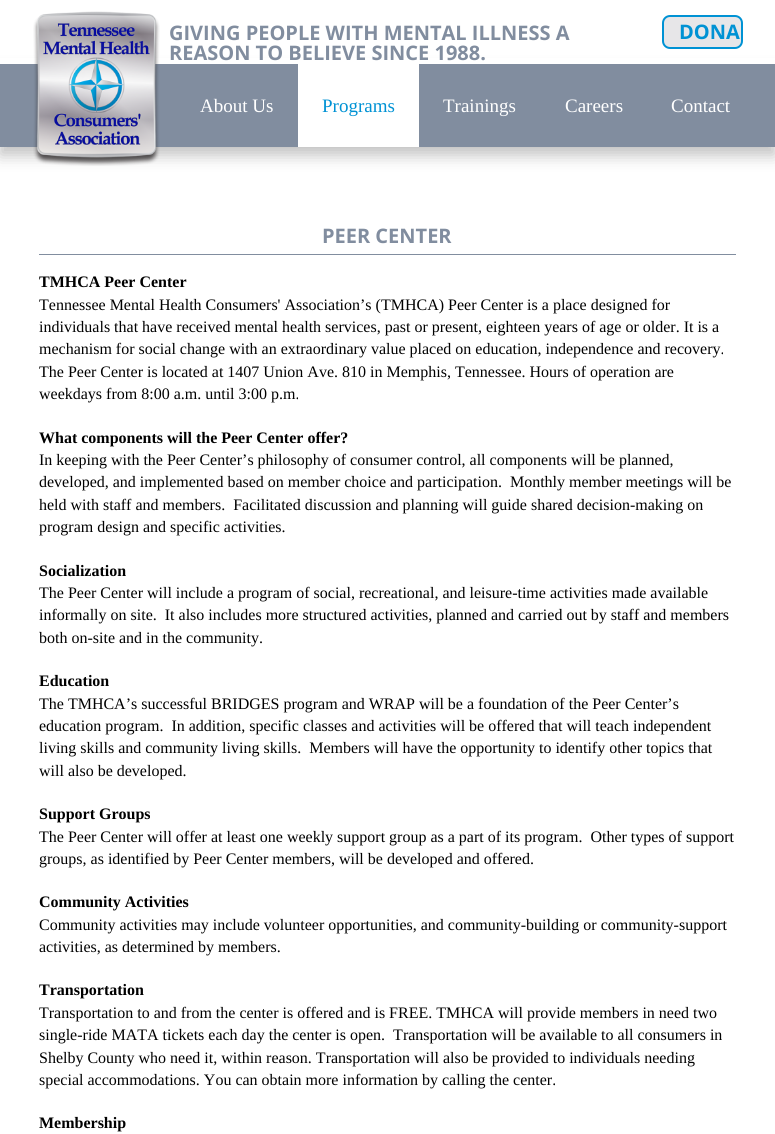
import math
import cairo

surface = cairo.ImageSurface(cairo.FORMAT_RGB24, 775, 1134)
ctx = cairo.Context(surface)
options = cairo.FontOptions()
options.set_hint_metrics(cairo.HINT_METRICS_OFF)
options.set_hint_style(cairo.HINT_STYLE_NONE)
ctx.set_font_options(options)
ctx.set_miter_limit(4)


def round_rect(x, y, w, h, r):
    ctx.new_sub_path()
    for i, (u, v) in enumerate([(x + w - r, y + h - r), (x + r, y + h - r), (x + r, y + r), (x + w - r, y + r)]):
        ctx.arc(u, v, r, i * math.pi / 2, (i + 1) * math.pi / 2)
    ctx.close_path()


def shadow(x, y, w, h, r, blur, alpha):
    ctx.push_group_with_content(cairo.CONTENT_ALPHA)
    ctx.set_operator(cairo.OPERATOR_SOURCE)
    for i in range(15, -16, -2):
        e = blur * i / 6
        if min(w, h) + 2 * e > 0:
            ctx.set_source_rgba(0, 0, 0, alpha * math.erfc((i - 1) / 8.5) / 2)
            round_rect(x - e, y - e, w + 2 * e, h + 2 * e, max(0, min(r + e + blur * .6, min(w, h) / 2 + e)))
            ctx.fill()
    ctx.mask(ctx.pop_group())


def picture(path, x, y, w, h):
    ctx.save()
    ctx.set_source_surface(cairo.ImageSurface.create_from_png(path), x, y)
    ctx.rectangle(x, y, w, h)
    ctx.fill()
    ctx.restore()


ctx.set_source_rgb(1, 1, 1)
ctx.paint()
ctx.set_source_rgb(0, 0, 0)
shadow(0, 72, 775, 83, 0, 8, 0.25)
ctx.set_source_rgb(1, 1, 1)
ctx.rectangle(0, 58, 775, 6)
ctx.fill()
ctx.set_source_rgb(0.506, 0.553, 0.624)
ctx.rectangle(0, 64, 775, 83)
ctx.fill()
picture("img1.png", 33, 11, 127, 155)
ctx.select_font_face("Open Sans", cairo.FONT_SLANT_NORMAL, cairo.FONT_WEIGHT_BOLD)
ctx.set_font_size(20)
ctx.move_to(169, 40)
ctx.show_text("GIVING PEOPLE WITH MENTAL ILLNESS A")
ctx.move_to(169, 60)
ctx.show_text("REASON TO BELIEVE SINCE 1988.")
ctx.set_source_rgb(0.906, 0.902, 0.91)
round_rect(663, 16, 79, 32, 7)
ctx.fill_preserve()
ctx.set_source_rgb(0, 0.573, 0.831)
ctx.stroke()
ctx.move_to(679, 39)
ctx.show_text("DONA")
ctx.select_font_face("Liberation Serif")
ctx.set_font_size(19)
ctx.set_source_rgb(1, 1, 1)
ctx.move_to(200, 112)
ctx.show_text("About Us")
ctx.rectangle(298, 64, 121, 83)
ctx.fill()
ctx.set_source_rgb(0, 0.573, 0.831)
ctx.move_to(322, 112)
ctx.show_text("Programs")
ctx.set_source_rgb(1, 1, 1)
ctx.move_to(443, 112)
ctx.show_text("Trainings")
ctx.move_to(565, 112)
ctx.show_text("Careers")
ctx.move_to(671, 112)
ctx.show_text("Contact")
ctx.set_source_rgb(0.506, 0.553, 0.624)
ctx.rectangle(39, 254, 697, 1)
ctx.fill()
ctx.select_font_face("Open Sans", cairo.FONT_SLANT_NORMAL, cairo.FONT_WEIGHT_BOLD)
ctx.set_font_size(20)
ctx.move_to(322, 243)
ctx.show_text("PEER CENTER")
ctx.select_font_face("Liberation Serif", cairo.FONT_SLANT_NORMAL, cairo.FONT_WEIGHT_BOLD)
ctx.set_font_size(16)
ctx.set_source_rgb(0, 0, 0)
ctx.move_to(39, 287)
ctx.show_text("TMHCA Peer Center")
ctx.select_font_face("Liberation Serif")
ctx.move_to(39, 310)
ctx.show_text("Tennessee Mental Health Consumers' Association’s (TMHCA) Peer Center is a place designed for")
ctx.move_to(39, 332)
ctx.show_text("individuals that have received mental health services, past or present, eighteen years of age or older. It is a")
ctx.move_to(39, 354)
ctx.show_text("mechanism for social change with an extraordinary value placed on education, independence and recovery.")
ctx.move_to(39, 377)
ctx.show_text("The Peer Center is located at 1407 Union Ave. 810 in Memphis, Tennessee. Hours of operation are")
ctx.move_to(39, 399)
ctx.show_text("weekdays from 8:00 a.m. until 3:00 p.m.")
ctx.select_font_face("Liberation Serif", cairo.FONT_SLANT_NORMAL, cairo.FONT_WEIGHT_BOLD)
ctx.move_to(39, 443)
ctx.show_text("What components will the Peer Center offer?")
ctx.select_font_face("Liberation Serif")
ctx.move_to(39, 465)
ctx.show_text("In keeping with the Peer Center’s philosophy of consumer control, all components will be planned,")
ctx.move_to(39, 487)
ctx.show_text("developed, and implemented based on member choice and participation.  Monthly member meetings will be")
ctx.move_to(39, 510)
ctx.show_text("held with staff and members.  Facilitated discussion and planning will guide shared decision-making on")
ctx.move_to(39, 532)
ctx.show_text("program design and specific activities.")
ctx.select_font_face("Liberation Serif", cairo.FONT_SLANT_NORMAL, cairo.FONT_WEIGHT_BOLD)
ctx.move_to(39, 576)
ctx.show_text("Socialization")
ctx.select_font_face("Liberation Serif")
ctx.move_to(39, 598)
ctx.show_text("The Peer Center will include a program of social, recreational, and leisure-time activities made available")
ctx.move_to(39, 620)
ctx.show_text("informally on site.  It also includes more structured activities, planned and carried out by staff and members")
ctx.move_to(39, 643)
ctx.show_text("both on-site and in the community.")
ctx.select_font_face("Liberation Serif", cairo.FONT_SLANT_NORMAL, cairo.FONT_WEIGHT_BOLD)
ctx.move_to(39, 686)
ctx.show_text("Education")
ctx.select_font_face("Liberation Serif")
ctx.move_to(39, 709)
ctx.show_text("The TMHCA’s successful BRIDGES program and WRAP will be a foundation of the Peer Center’s")
ctx.move_to(39, 731)
ctx.show_text("education program.  In addition, specific classes and activities will be offered that will teach independent")
ctx.move_to(39, 753)
ctx.show_text("living skills and community living skills.  Members will have the opportunity to identify other topics that")
ctx.move_to(39, 776)
ctx.show_text("will also be developed.")
ctx.select_font_face("Liberation Serif", cairo.FONT_SLANT_NORMAL, cairo.FONT_WEIGHT_BOLD)
ctx.move_to(39, 819)
ctx.show_text("Support Groups")
ctx.select_font_face("Liberation Serif")
ctx.move_to(39, 842)
ctx.show_text("The Peer Center will offer at least one weekly support group as a part of its program.  Other types of support")
ctx.move_to(39, 864)
ctx.show_text("groups, as identified by Peer Center members, will be developed and offered.")
ctx.select_font_face("Liberation Serif", cairo.FONT_SLANT_NORMAL, cairo.FONT_WEIGHT_BOLD)
ctx.move_to(39, 907)
ctx.show_text("Community Activities")
ctx.select_font_face("Liberation Serif")
ctx.move_to(39, 930)
ctx.show_text("Community activities may include volunteer opportunities, and community-building or community-support")
ctx.move_to(39, 952)
ctx.show_text("activities, as determined by members.")
ctx.select_font_face("Liberation Serif", cairo.FONT_SLANT_NORMAL, cairo.FONT_WEIGHT_BOLD)
ctx.move_to(39, 995)
ctx.show_text("Transportation")
ctx.select_font_face("Liberation Serif")
ctx.move_to(39, 1018)
ctx.show_text("Transportation to and from the center is offered and is FREE. TMHCA will provide members in need two")
ctx.move_to(39, 1040)
ctx.show_text("single-ride MATA tickets each day the center is open.  Transportation will be available to all consumers in")
ctx.move_to(39, 1063)
ctx.show_text("Shelby County who need it, within reason. Transportation will also be provided to individuals needing")
ctx.move_to(39, 1085)
ctx.show_text("special accommodations. You can obtain more information by calling the center.")
ctx.select_font_face("Liberation Serif", cairo.FONT_SLANT_NORMAL, cairo.FONT_WEIGHT_BOLD)
ctx.move_to(39, 1128)
ctx.show_text("Membership")
surface.write_to_png("page.png")
